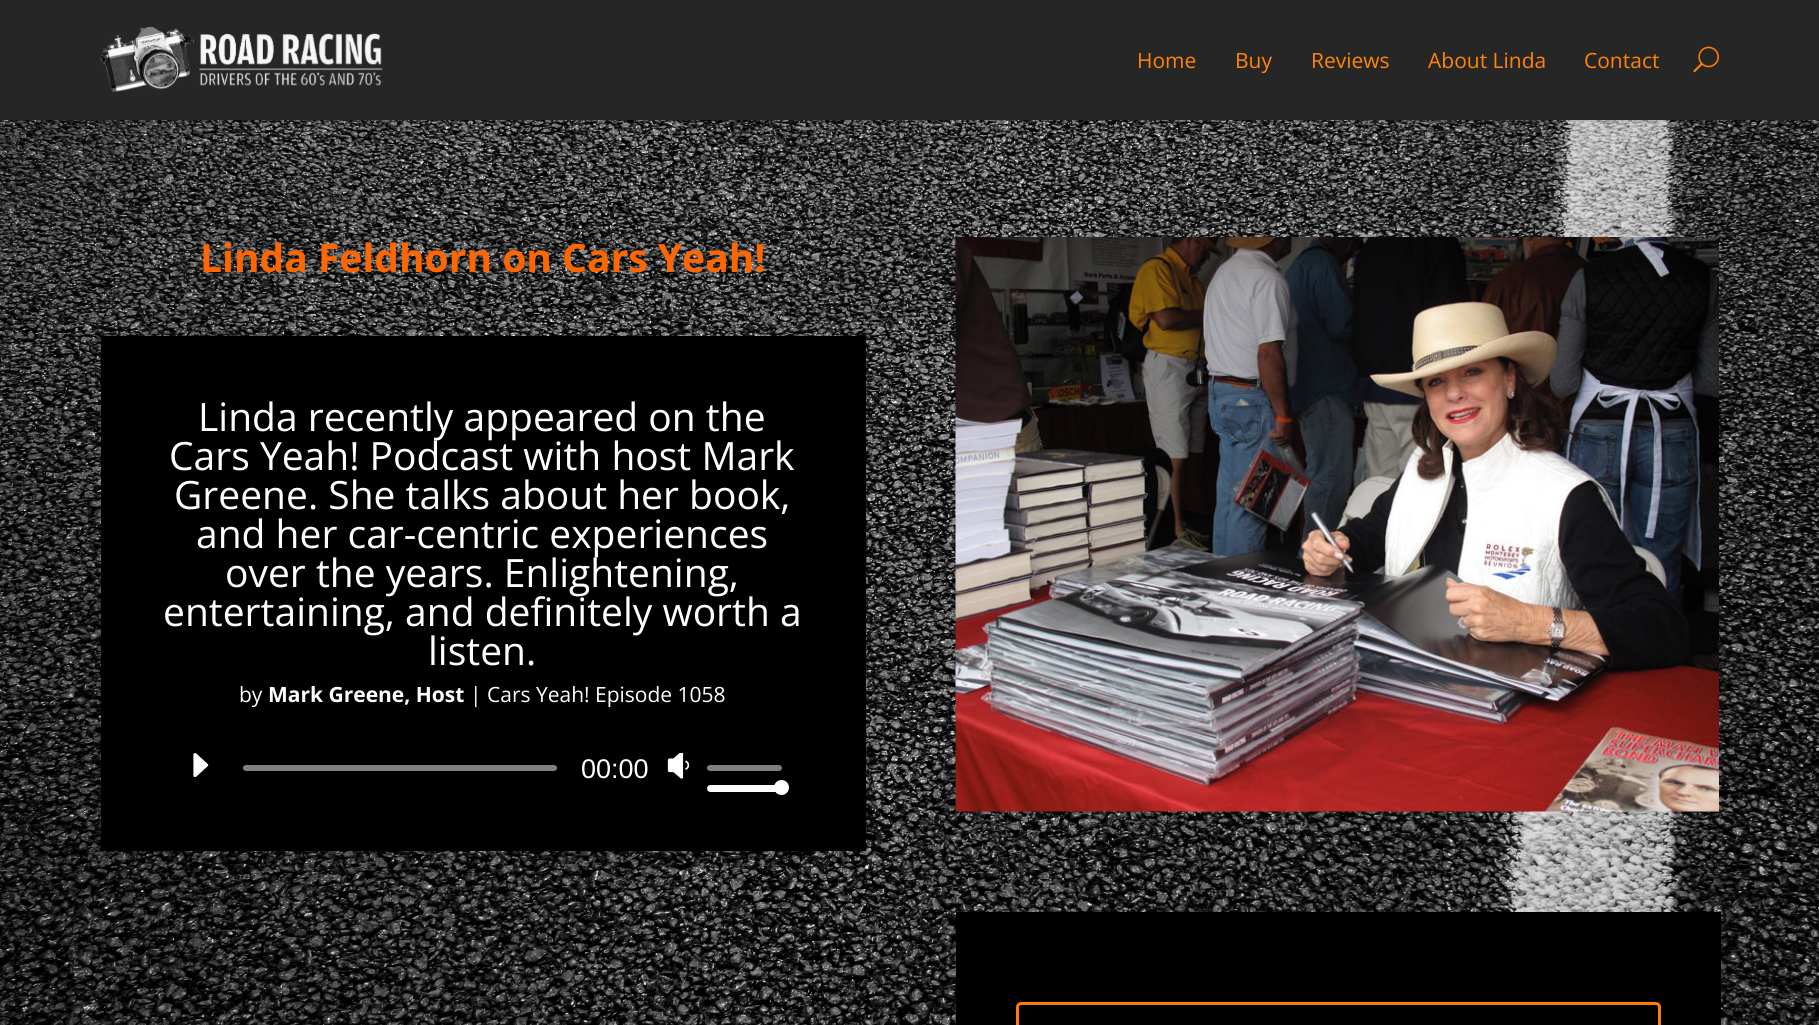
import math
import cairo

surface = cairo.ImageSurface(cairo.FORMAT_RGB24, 1819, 1025)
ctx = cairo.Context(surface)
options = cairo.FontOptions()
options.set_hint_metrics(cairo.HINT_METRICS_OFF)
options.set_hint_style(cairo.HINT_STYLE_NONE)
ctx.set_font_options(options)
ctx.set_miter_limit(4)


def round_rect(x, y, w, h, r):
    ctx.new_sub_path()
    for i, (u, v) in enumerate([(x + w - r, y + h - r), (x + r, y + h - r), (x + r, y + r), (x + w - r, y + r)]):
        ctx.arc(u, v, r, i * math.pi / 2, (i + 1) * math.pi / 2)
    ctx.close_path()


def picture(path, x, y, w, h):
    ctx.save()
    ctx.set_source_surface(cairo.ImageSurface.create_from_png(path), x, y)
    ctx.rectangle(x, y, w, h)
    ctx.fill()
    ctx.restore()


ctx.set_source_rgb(1, 1, 1)
ctx.paint()
picture("img1.png", 0, 120, 1819, 905)
ctx.set_source_rgba(0, 0, 0, 0.1)
ctx.new_path()
ctx.move_to(0, 120)
ctx.line_to(0, 122)
ctx.line_to(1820, 122)
ctx.line_to(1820, 2)
ctx.line_to(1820, 120)
ctx.close_path()
ctx.fill()
ctx.set_source_rgb(0.149, 0.149, 0.149)
ctx.rectangle(0, 0, 1819, 120)
ctx.fill()
picture("img2.png", 100, 27, 283, 65)
ctx.select_font_face("Open Sans")
ctx.set_font_size(21)
ctx.set_source_rgb(1, 0.518, 0.031)
ctx.move_to(1137, 68)
ctx.show_text("Home")
ctx.move_to(1235, 68)
ctx.show_text("Buy")
ctx.move_to(1311, 68)
ctx.show_text("Reviews")
ctx.move_to(1428, 68)
ctx.show_text("About Linda")
ctx.move_to(1584, 68)
ctx.show_text("Contact")
picture("img3.png", 1693, 46, 26, 27)
ctx.select_font_face("Open Sans", cairo.FONT_SLANT_NORMAL, cairo.FONT_WEIGHT_BOLD)
ctx.set_font_size(39)
ctx.set_source_rgb(1, 0.4, 0)
ctx.move_to(200, 272)
ctx.show_text("Linda Feldhorn on Cars Yeah!")
ctx.set_source_rgb(0, 0, 0)
ctx.rectangle(101, 336, 765, 515)
ctx.fill()
ctx.select_font_face("Open Sans")
ctx.set_source_rgb(1, 1, 1)
ctx.move_to(198, 431)
ctx.show_text("Linda recently appeared on the")
ctx.move_to(169, 470)
ctx.show_text("Cars Yeah! Podcast with host Mark")
ctx.move_to(174, 509)
ctx.show_text("Greene. She talks about her book,")
ctx.move_to(196, 548)
ctx.show_text("and her car-centric experiences")
ctx.move_to(225, 587)
ctx.show_text("over the years. Enlightening,")
ctx.move_to(163, 626)
ctx.show_text("entertaining, and definitely worth a")
ctx.move_to(428, 665)
ctx.show_text("listen.")
ctx.set_font_size(21)
ctx.move_to(239, 702)
ctx.show_text("by")
ctx.select_font_face("Open Sans", cairo.FONT_SLANT_NORMAL, cairo.FONT_WEIGHT_BOLD)
ctx.move_to(268, 702)
ctx.show_text("Mark Greene, Host")
ctx.select_font_face("Open Sans")
ctx.move_to(470, 702)
ctx.show_text("| Cars Yeah! Episode 1058")
picture("img4.png", 193, 753, 16, 24)
ctx.set_source_rgb(0.502, 0.502, 0.502)
round_rect(243, 765, 314, 6, 3)
ctx.fill()
ctx.select_font_face("Liberation Sans")
ctx.set_font_size(27)
ctx.set_source_rgb(1, 1, 1)
ctx.move_to(581, 778)
ctx.show_text("00:00")
picture("img5.png", 667, 753, 23, 26)
ctx.set_source_rgb(0.502, 0.502, 0.502)
round_rect(707, 765, 75, 6, 3)
ctx.fill()
ctx.set_source_rgb(1, 1, 1)
round_rect(707, 785, 75, 7, 3.5)
ctx.fill()
ctx.arc(781.5, 787.5, 7.5, 0, 2 * math.pi)
ctx.fill()
picture("img6.png", 955, 237, 764, 575)
ctx.set_source_rgb(0, 0, 0)
ctx.rectangle(956, 912, 765, 113)
ctx.fill()
round_rect(1017.5, 1003.5, 642, 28, 3.5)
ctx.set_source_rgb(1, 0.482, 0.031)
ctx.set_line_width(3)
ctx.stroke()
surface.write_to_png("page.png")
